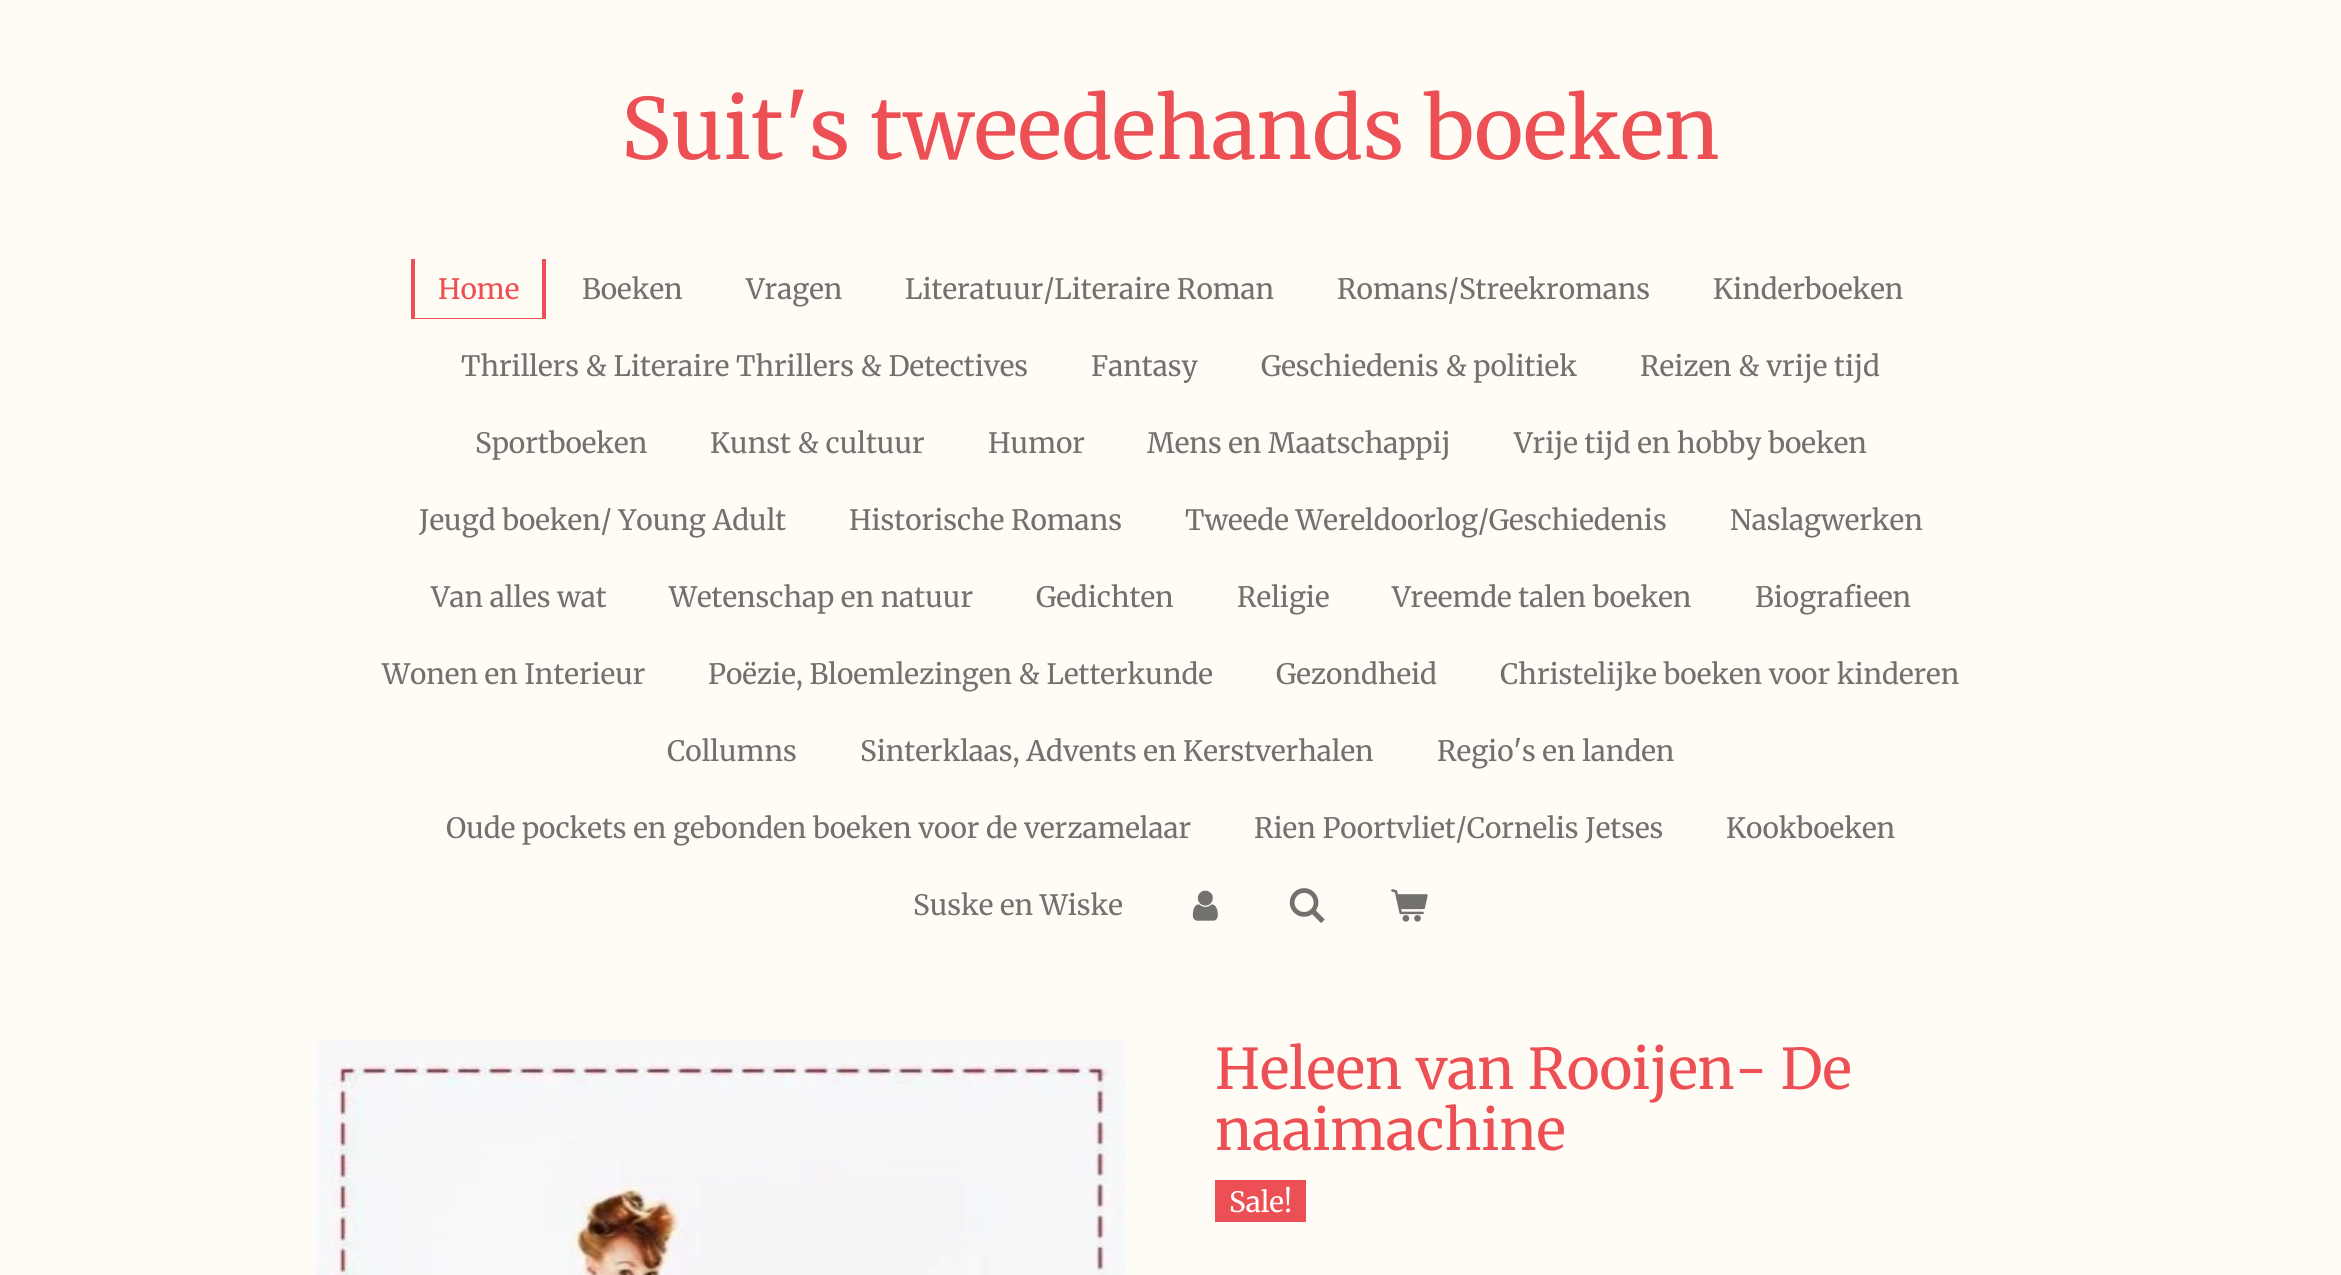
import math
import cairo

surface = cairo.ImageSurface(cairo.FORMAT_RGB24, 2341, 1275)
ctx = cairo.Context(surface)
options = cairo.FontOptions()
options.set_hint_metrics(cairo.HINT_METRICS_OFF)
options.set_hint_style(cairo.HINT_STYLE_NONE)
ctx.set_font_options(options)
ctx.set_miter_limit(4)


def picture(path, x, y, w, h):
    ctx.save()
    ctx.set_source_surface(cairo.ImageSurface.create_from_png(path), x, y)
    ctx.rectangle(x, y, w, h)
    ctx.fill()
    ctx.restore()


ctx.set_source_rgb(1, 0.988, 0.961)
ctx.paint()
ctx.select_font_face("Merriweather")
ctx.set_font_size(84)
ctx.set_source_rgb(0.922, 0.314, 0.333)
ctx.move_to(621, 159)
ctx.show_text("Suit's tweedehands boeken")
ctx.new_path()
ctx.move_to(418, 318)
ctx.line_to(418, 319)
ctx.line_to(546, 319)
ctx.line_to(546, 259)
ctx.line_to(542, 259)
ctx.line_to(542, 318)
ctx.close_path()
ctx.fill()
ctx.new_path()
ctx.move_to(411, 259)
ctx.line_to(411, 319)
ctx.line_to(539, 319)
ctx.line_to(539, 318)
ctx.line_to(415, 318)
ctx.line_to(415, 259)
ctx.close_path()
ctx.fill()
ctx.set_font_size(28)
ctx.move_to(438, 299)
ctx.show_text("Home")
ctx.set_source_rgb(0.451, 0.443, 0.431)
ctx.move_to(582, 299)
ctx.show_text("Boeken")
ctx.move_to(746, 299)
ctx.show_text("Vragen")
ctx.move_to(905, 299)
ctx.show_text("Literatuur/Literaire Roman")
ctx.move_to(1337, 299)
ctx.show_text("Romans/Streekromans")
ctx.move_to(1713, 299)
ctx.show_text("Kinderboeken")
ctx.move_to(461, 376)
ctx.show_text("Thrillers & Literaire Thrillers & Detectives")
ctx.move_to(1091, 376)
ctx.show_text("Fantasy")
ctx.move_to(1261, 376)
ctx.show_text("Geschiedenis & politiek")
ctx.move_to(1640, 376)
ctx.show_text("Reizen & vrije tijd")
ctx.move_to(475, 453)
ctx.show_text("Sportboeken")
ctx.move_to(710, 453)
ctx.show_text("Kunst & cultuur")
ctx.move_to(988, 453)
ctx.show_text("Humor")
ctx.move_to(1147, 453)
ctx.show_text("Mens en Maatschappij")
ctx.move_to(1514, 453)
ctx.show_text("Vrije tijd en hobby boeken")
ctx.move_to(419, 530)
ctx.show_text("Jeugd boeken/ Young Adult")
ctx.move_to(849, 530)
ctx.show_text("Historische Romans")
ctx.move_to(1185, 530)
ctx.show_text("Tweede Wereldoorlog/Geschiedenis")
ctx.move_to(1730, 530)
ctx.show_text("Naslagwerken")
ctx.move_to(431, 607)
ctx.show_text("Van alles wat")
ctx.move_to(669, 607)
ctx.show_text("Wetenschap en natuur")
ctx.move_to(1036, 607)
ctx.show_text("Gedichten")
ctx.move_to(1237, 607)
ctx.show_text("Religie")
ctx.move_to(1392, 607)
ctx.show_text("Vreemde talen boeken")
ctx.move_to(1755, 607)
ctx.show_text("Biografieen")
ctx.move_to(382, 684)
ctx.show_text("Wonen en Interieur")
ctx.move_to(708, 684)
ctx.show_text("Poëzie, Bloemlezingen & Letterkunde")
ctx.move_to(1276, 684)
ctx.show_text("Gezondheid")
ctx.move_to(1500, 684)
ctx.show_text("Christelijke boeken voor kinderen")
ctx.move_to(667, 761)
ctx.show_text("Collumns")
ctx.move_to(860, 761)
ctx.show_text("Sinterklaas, Advents en Kerstverhalen")
ctx.move_to(1437, 761)
ctx.show_text("Regio's en landen")
ctx.move_to(446, 838)
ctx.show_text("Oude pockets en gebonden boeken voor de verzamelaar")
ctx.move_to(1254, 838)
ctx.show_text("Rien Poortvliet/Cornelis Jetses")
ctx.move_to(1726, 838)
ctx.show_text("Kookboeken")
ctx.move_to(913, 915)
ctx.show_text("Suske en Wiske")
picture("img1.png", 1192, 890, 26, 31)
picture("img2.png", 1289, 888, 36, 35)
picture("img3.png", 1391, 889, 37, 33)
picture("img4.png", 316, 1040, 810, 235)
ctx.set_font_size(56)
ctx.set_source_rgb(0.922, 0.314, 0.333)
ctx.move_to(1215, 1089)
ctx.show_text("Heleen van Rooijen- De")
ctx.move_to(1215, 1150)
ctx.show_text("naaimachine")
ctx.rectangle(1215, 1180, 91, 42)
ctx.fill()
ctx.set_font_size(28)
ctx.set_source_rgb(1, 1, 1)
ctx.move_to(1229, 1212)
ctx.show_text("Sale!")
surface.write_to_png("page.png")
